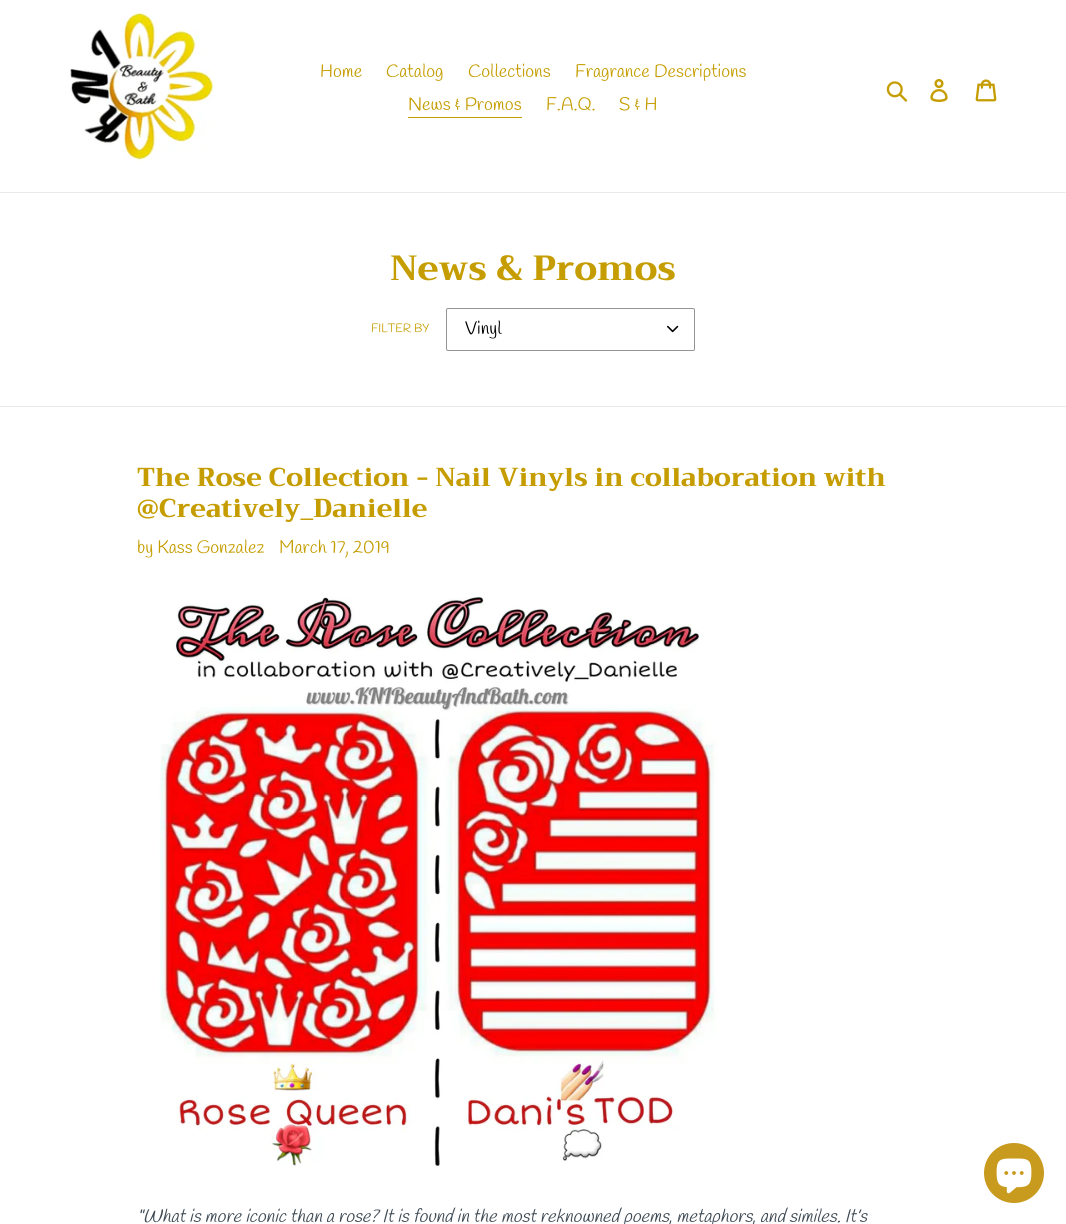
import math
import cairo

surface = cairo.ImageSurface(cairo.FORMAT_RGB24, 1066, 1224)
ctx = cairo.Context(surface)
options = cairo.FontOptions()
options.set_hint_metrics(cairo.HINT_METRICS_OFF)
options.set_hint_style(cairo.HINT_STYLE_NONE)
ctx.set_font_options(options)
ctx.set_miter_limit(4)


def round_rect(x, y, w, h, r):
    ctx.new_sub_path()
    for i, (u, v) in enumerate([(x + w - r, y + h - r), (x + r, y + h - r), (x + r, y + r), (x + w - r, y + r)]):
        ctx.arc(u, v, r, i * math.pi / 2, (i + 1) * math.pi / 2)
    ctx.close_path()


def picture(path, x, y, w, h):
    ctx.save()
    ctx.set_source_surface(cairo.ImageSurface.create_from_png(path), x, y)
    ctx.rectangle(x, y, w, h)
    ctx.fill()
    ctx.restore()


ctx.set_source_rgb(1, 1, 1)
ctx.paint()
ctx.set_source_rgb(0.91, 0.914, 0.922)
ctx.rectangle(0, 192, 1066, 1)
ctx.fill()
picture("img1.png", 70, 9, 145, 152)
ctx.select_font_face("Handlee")
ctx.set_font_size(18)
ctx.set_source_rgb(0.773, 0.616, 0)
ctx.move_to(320, 77)
ctx.show_text("Home")
ctx.move_to(386, 77)
ctx.show_text("Catalog")
ctx.move_to(468, 77)
ctx.show_text("Collections")
ctx.move_to(575, 77)
ctx.show_text("Fragrance Descriptions")
ctx.move_to(408, 110)
ctx.show_text("News & Promos")
ctx.rectangle(408, 117, 114, 1)
ctx.fill()
ctx.move_to(546, 110)
ctx.show_text("F.A.Q.")
ctx.move_to(619, 110)
ctx.show_text("S & H")
picture("img2.png", 886, 81, 22, 21)
picture("img3.png", 930, 79, 18, 23)
picture("img4.png", 975, 79, 22, 23)
ctx.select_font_face("Trirong ExtraBold")
ctx.set_font_size(35)
ctx.move_to(390, 280)
ctx.show_text("News & Promos")
ctx.select_font_face("Handlee")
ctx.set_font_size(12)
ctx.move_to(371, 332)
ctx.show_text("FILTER BY")
picture("img5.png", 667, 325, 12, 8)
round_rect(446.5, 308.5, 248, 42, 1.5)
ctx.set_source_rgb(0.58, 0.58, 0.58)
ctx.set_line_width(1)
ctx.stroke()
ctx.set_font_size(18)
ctx.set_source_rgb(0, 0, 0)
ctx.move_to(465, 334)
ctx.show_text("Vinyl")
ctx.set_source_rgb(0.91, 0.914, 0.922)
ctx.rectangle(0, 406, 1066, 1)
ctx.fill()
ctx.select_font_face("Trirong ExtraBold")
ctx.set_font_size(26)
ctx.set_source_rgb(0.773, 0.616, 0)
ctx.move_to(137, 486)
ctx.show_text("The Rose Collection - Nail Vinyls in collaboration with")
ctx.move_to(137, 517)
ctx.show_text("@Creatively_Danielle")
ctx.select_font_face("Handlee")
ctx.set_font_size(18)
ctx.move_to(137, 553)
ctx.show_text("by Kass Gonzalez")
ctx.move_to(279, 553)
ctx.show_text("March 17, 2019")
picture("img6.png", 159, 597, 558, 570)
ctx.select_font_face("Handlee", cairo.FONT_SLANT_ITALIC)
ctx.set_source_rgb(0.239, 0.286, 0.325)
ctx.move_to(137, 1222)
ctx.show_text("\"What is more iconic than a rose? It is found in the most reknowned poems, metaphors, and similes. It’s")
ctx.set_source_rgb(0.784, 0.604, 0.114)
ctx.new_path()
ctx.arc(1014, 1173, 30, 0, 2 * math.pi)
ctx.fill()
picture("img7.png", 996, 1158, 36, 36)
surface.write_to_png("page.png")
